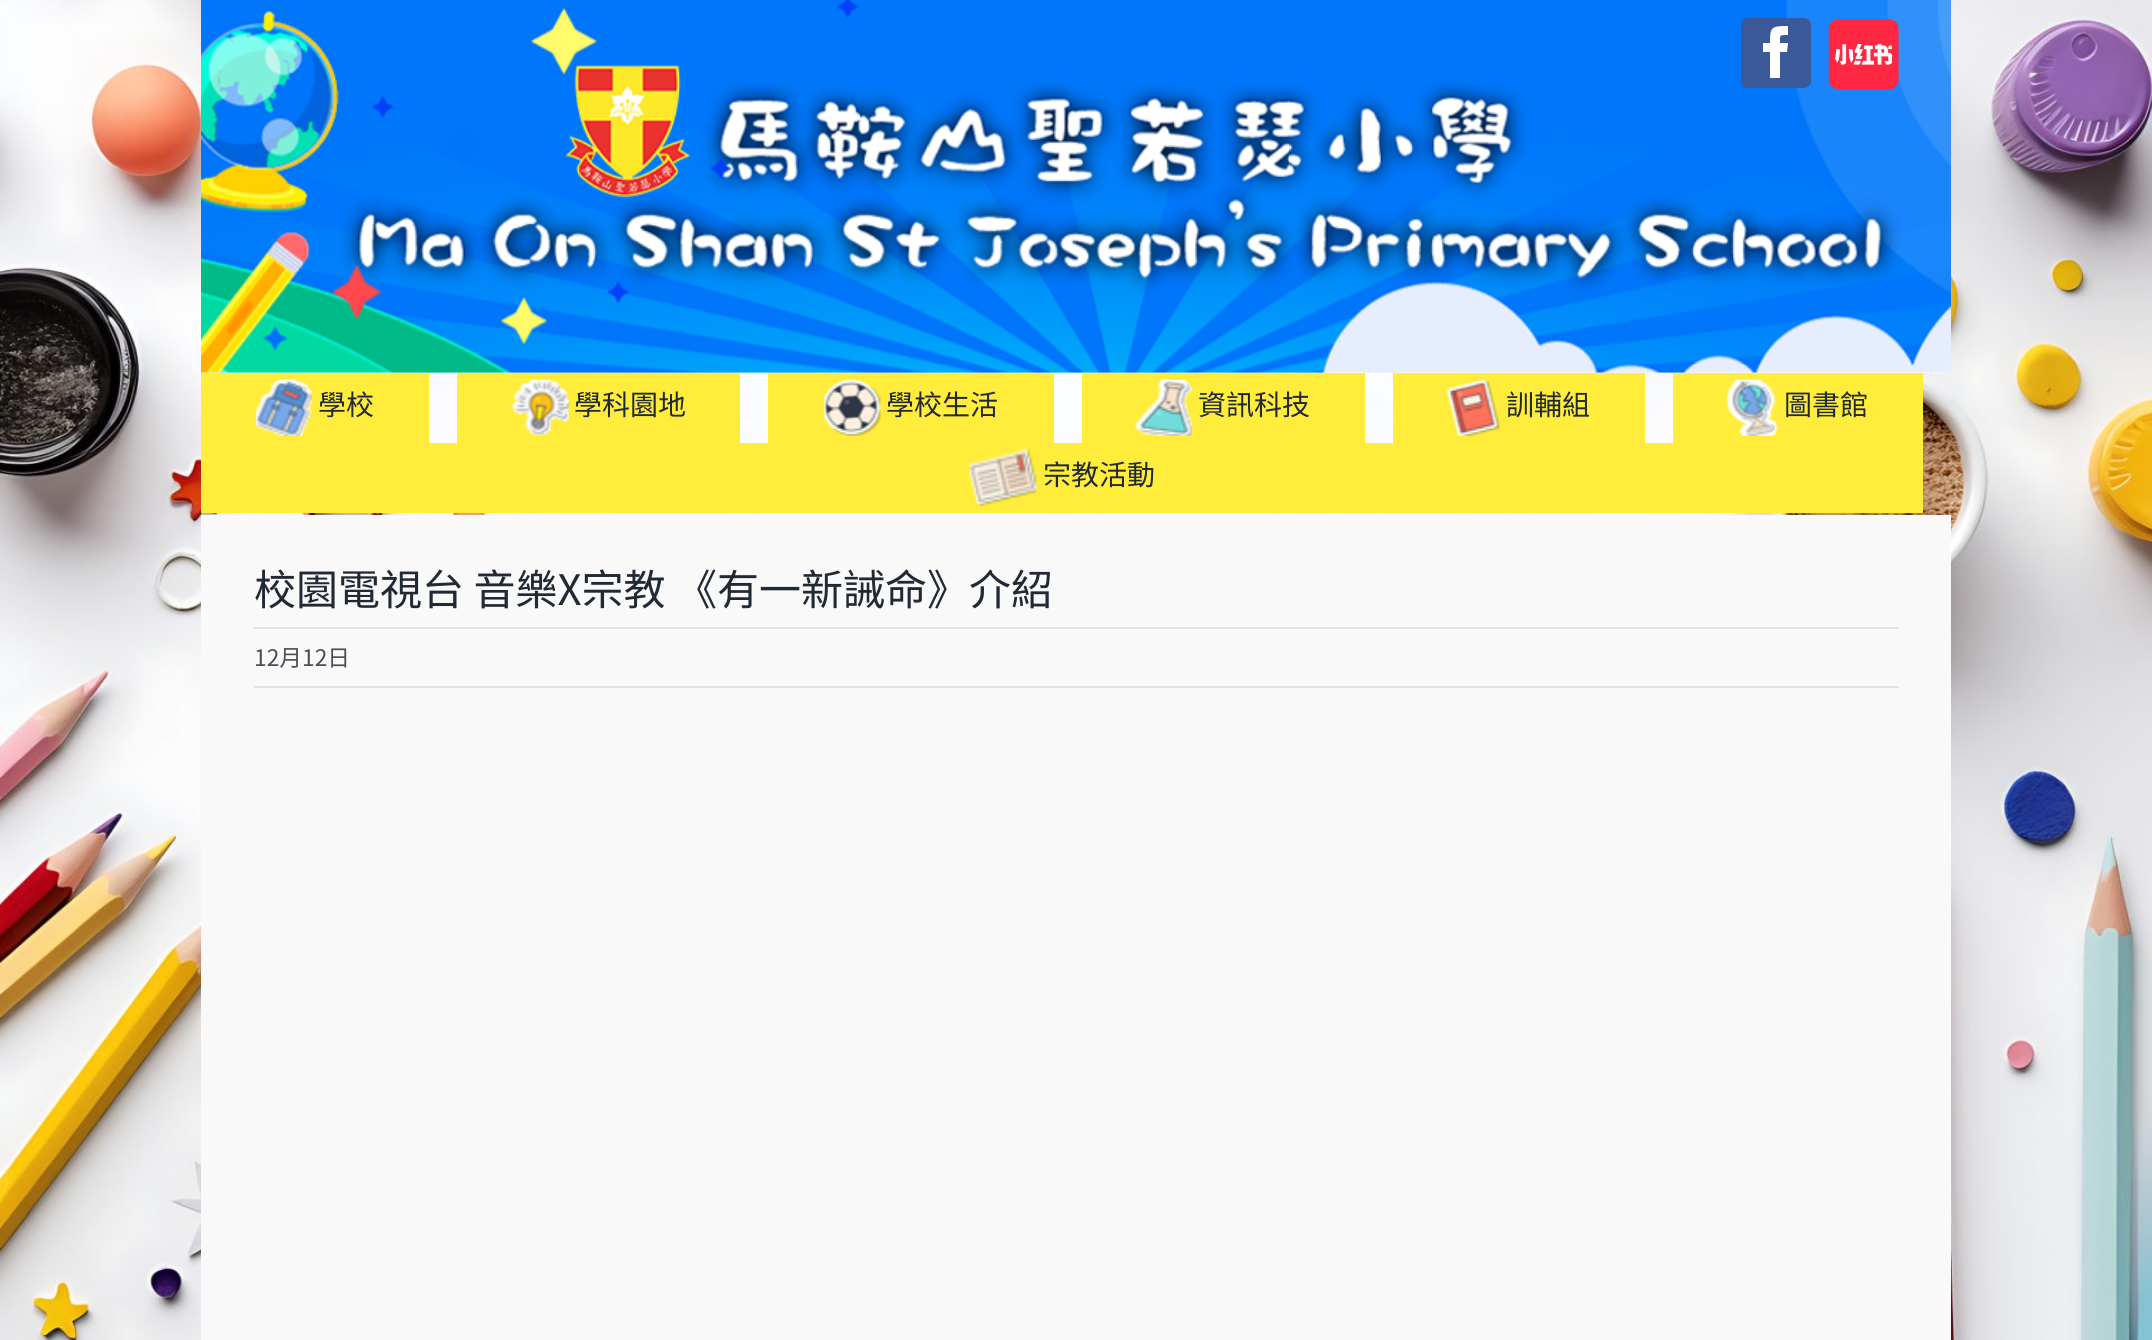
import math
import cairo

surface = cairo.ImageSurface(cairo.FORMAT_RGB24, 2152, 1340)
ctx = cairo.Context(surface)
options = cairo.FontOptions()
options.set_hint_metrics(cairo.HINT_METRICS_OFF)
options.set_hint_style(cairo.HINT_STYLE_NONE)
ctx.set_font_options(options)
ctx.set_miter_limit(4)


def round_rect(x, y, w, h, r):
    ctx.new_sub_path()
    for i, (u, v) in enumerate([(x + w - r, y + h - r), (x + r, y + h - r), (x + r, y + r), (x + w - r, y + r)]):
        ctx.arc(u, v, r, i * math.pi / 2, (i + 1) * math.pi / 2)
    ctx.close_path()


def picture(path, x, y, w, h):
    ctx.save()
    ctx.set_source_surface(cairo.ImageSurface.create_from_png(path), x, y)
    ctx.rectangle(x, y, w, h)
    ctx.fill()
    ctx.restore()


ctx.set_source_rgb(1, 1, 1)
ctx.paint()
picture("img1.png", 0, 0, 2152, 1340)
ctx.set_source_rgb(1, 1, 1)
ctx.rectangle(201, 372, 1750, 1)
ctx.fill()
picture("img3.png", 201, 0, 1750, 373)
ctx.set_source_rgb(0.231, 0.349, 0.596)
round_rect(1742, 19, 68, 68, 6)
ctx.fill_preserve()
ctx.stroke()
ctx.set_source_rgb(1, 1, 1)
ctx.new_path()
ctx.move_to(1780, 78)
ctx.line_to(1770, 78)
ctx.line_to(1770, 52)
ctx.line_to(1763, 52)
ctx.line_to(1763, 43)
ctx.line_to(1770, 43)
ctx.curve_to(1770, 27, 1771, 26, 1788, 26)
ctx.line_to(1788, 35)
ctx.curve_to(1779, 35, 1780, 35, 1780, 43)
ctx.line_to(1788, 43)
ctx.line_to(1787, 52)
ctx.line_to(1780, 52)
ctx.close_path()
ctx.fill()
picture("img2.png", 1828, 19, 71, 71)
ctx.set_source_rgb(1, 0.922, 0.231)
ctx.rectangle(201, 373, 228, 70)
ctx.fill()
picture("img4.png", 256, 379, 56, 57)
ctx.select_font_face("Noto Sans TC")
ctx.set_font_size(28)
ctx.set_source_rgb(0.129, 0.161, 0.204)
ctx.move_to(318, 415)
ctx.show_text("學校")
ctx.set_source_rgb(1, 0.922, 0.231)
ctx.rectangle(457, 373, 283, 70)
ctx.fill()
picture("img5.png", 512, 379, 58, 57)
ctx.set_source_rgb(0.129, 0.161, 0.204)
ctx.move_to(574, 415)
ctx.show_text("學科園地")
ctx.set_source_rgb(1, 0.922, 0.231)
ctx.rectangle(768, 373, 286, 70)
ctx.fill()
picture("img6.png", 823, 379, 58, 57)
ctx.set_source_rgb(0.129, 0.161, 0.204)
ctx.move_to(886, 415)
ctx.show_text("學校生活")
ctx.set_source_rgb(1, 0.922, 0.231)
ctx.rectangle(1082, 373, 283, 70)
ctx.fill()
picture("img7.png", 1135, 379, 58, 57)
ctx.set_source_rgb(0.129, 0.161, 0.204)
ctx.move_to(1198, 415)
ctx.show_text("資訊科技")
ctx.set_source_rgb(1, 0.922, 0.231)
ctx.rectangle(1393, 373, 252, 70)
ctx.fill()
picture("img8.png", 1446, 379, 55, 57)
ctx.set_source_rgb(0.129, 0.161, 0.204)
ctx.move_to(1506, 415)
ctx.show_text("訓輔組")
ctx.set_source_rgb(1, 0.922, 0.231)
ctx.rectangle(1673, 373, 250, 70)
ctx.fill()
picture("img9.png", 1726, 379, 53, 57)
ctx.set_source_rgb(0.129, 0.161, 0.204)
ctx.move_to(1784, 415)
ctx.show_text("圖書館")
ctx.set_source_rgb(1, 0.922, 0.231)
ctx.rectangle(201, 443, 1722, 70)
ctx.fill()
picture("img10.png", 969, 448, 68, 58)
ctx.set_source_rgb(0.129, 0.161, 0.204)
ctx.move_to(1043, 485)
ctx.show_text("宗教活動")
ctx.set_source_rgb(0.976, 0.976, 0.976)
ctx.rectangle(201, 515, 1750, 825)
ctx.fill()
ctx.set_font_size(42)
ctx.set_source_rgb(0.129, 0.161, 0.204)
ctx.move_to(254, 605)
ctx.show_text("校園電視台 音樂X宗教 《有一新誡命》介紹")
ctx.set_source_rgb(0.886, 0.886, 0.886)
ctx.rectangle(254, 627, 1645, 2)
ctx.fill()
ctx.rectangle(254, 686, 1645, 2)
ctx.fill()
ctx.set_font_size(22.75)
ctx.set_source_rgb(0.29, 0.306, 0.341)
ctx.move_to(254, 666)
ctx.show_text("12月12日")
surface.write_to_png("page.png")
